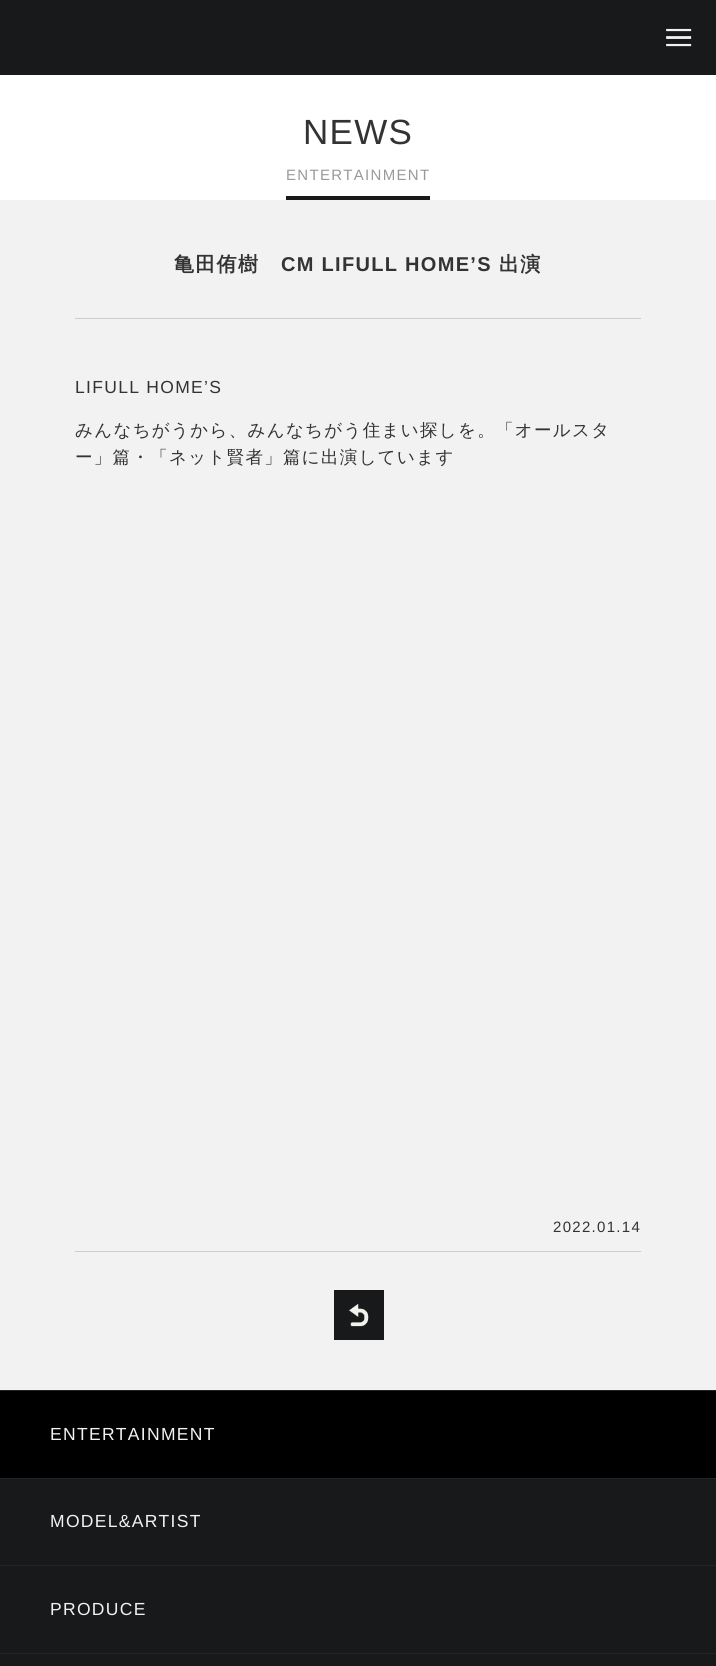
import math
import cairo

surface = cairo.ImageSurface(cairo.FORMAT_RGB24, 716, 1666)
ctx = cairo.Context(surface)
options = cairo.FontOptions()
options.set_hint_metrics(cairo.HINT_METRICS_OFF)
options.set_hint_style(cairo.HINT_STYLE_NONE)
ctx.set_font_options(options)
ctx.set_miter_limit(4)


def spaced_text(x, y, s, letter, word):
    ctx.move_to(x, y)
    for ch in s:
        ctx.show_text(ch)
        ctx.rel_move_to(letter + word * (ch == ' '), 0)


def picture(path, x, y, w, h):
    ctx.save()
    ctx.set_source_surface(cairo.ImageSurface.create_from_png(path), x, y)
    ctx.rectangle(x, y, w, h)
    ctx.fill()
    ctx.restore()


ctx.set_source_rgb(0.949, 0.949, 0.949)
ctx.paint()
ctx.set_source_rgb(0.09, 0.098, 0.102)
ctx.rectangle(0, 0, 716, 75)
ctx.fill()
picture("img1.png", 666, 28, 26, 19)
ctx.set_source_rgb(1, 1, 1)
ctx.rectangle(0, 75, 716, 125)
ctx.fill()
ctx.select_font_face("Liberation Sans")
ctx.set_font_size(35)
ctx.set_source_rgb(0.2, 0.2, 0.2)
spaced_text(303, 144, "NEWS", 1.3, 0)
ctx.set_source_rgb(0.09, 0.098, 0.102)
ctx.rectangle(286, 196, 144, 4)
ctx.fill()
ctx.set_font_size(15)
ctx.set_source_rgb(0.6, 0.6, 0.6)
spaced_text(286, 180, "ENTERTAINMENT", 1.3, 0)
ctx.set_source_rgb(0.8, 0.8, 0.8)
ctx.rectangle(75, 318, 566, 1)
ctx.fill()
ctx.select_font_face("WenQuanYi Zen Hei", cairo.FONT_SLANT_NORMAL, cairo.FONT_WEIGHT_BOLD)
ctx.set_font_size(20)
ctx.set_source_rgb(0.2, 0.2, 0.2)
spaced_text(174, 271, "亀田侑樹", 1.3, 0)
ctx.select_font_face("Liberation Sans", cairo.FONT_SLANT_NORMAL, cairo.FONT_WEIGHT_BOLD)
spaced_text(281, 271, "CM LIFULL HOME’S", 1.3, 0)
ctx.select_font_face("WenQuanYi Zen Hei", cairo.FONT_SLANT_NORMAL, cairo.FONT_WEIGHT_BOLD)
spaced_text(499, 271, "出演", 1.3, 0)
ctx.select_font_face("Liberation Sans")
ctx.set_font_size(17.5)
spaced_text(75, 393, "LIFULL HOME’S", 1.3, 0)
ctx.select_font_face("WenQuanYi Zen Hei Medium")
spaced_text(75, 436, "みんなちがうから、みんなちがう住まい探しを。「オールスタ", 1.3, 0)
spaced_text(75, 463, "ー」篇・「ネット賢者」篇に出演しています", 1.3, 0)
ctx.set_source_rgb(0.8, 0.8, 0.8)
ctx.rectangle(75, 1251, 566, 1)
ctx.fill()
ctx.select_font_face("Liberation Sans")
ctx.set_font_size(15)
ctx.set_source_rgb(0.2, 0.2, 0.2)
spaced_text(553, 1232, "2022.01.14", 1.3, 0)
ctx.set_source_rgb(0.09, 0.098, 0.102)
ctx.rectangle(334, 1290, 50, 50)
ctx.fill()
picture("img2.png", 349, 1304, 20, 23)
ctx.rectangle(0, 1479, 716, 187)
ctx.fill()
ctx.set_source_rgb(0.141, 0.141, 0.141)
ctx.rectangle(0, 1390, 716, 1)
ctx.fill()
ctx.rectangle(0, 1478, 716, 1)
ctx.fill()
ctx.set_source_rgb(0, 0, 0)
ctx.rectangle(0, 1391, 716, 87)
ctx.fill()
ctx.set_font_size(17.5)
ctx.set_source_rgb(0.949, 0.949, 0.949)
spaced_text(50, 1440, "ENTERTAINMENT", 1.3, 0)
ctx.set_source_rgb(0.141, 0.141, 0.141)
ctx.rectangle(0, 1565, 716, 1)
ctx.fill()
ctx.set_source_rgb(0.949, 0.949, 0.949)
spaced_text(50, 1527, "MODEL&ARTIST", 1.3, 0)
ctx.set_source_rgb(0.141, 0.141, 0.141)
ctx.rectangle(0, 1653, 716, 1)
ctx.fill()
ctx.set_source_rgb(0.949, 0.949, 0.949)
spaced_text(50, 1615, "PRODUCE", 1.3, 0)
surface.write_to_png("page.png")
